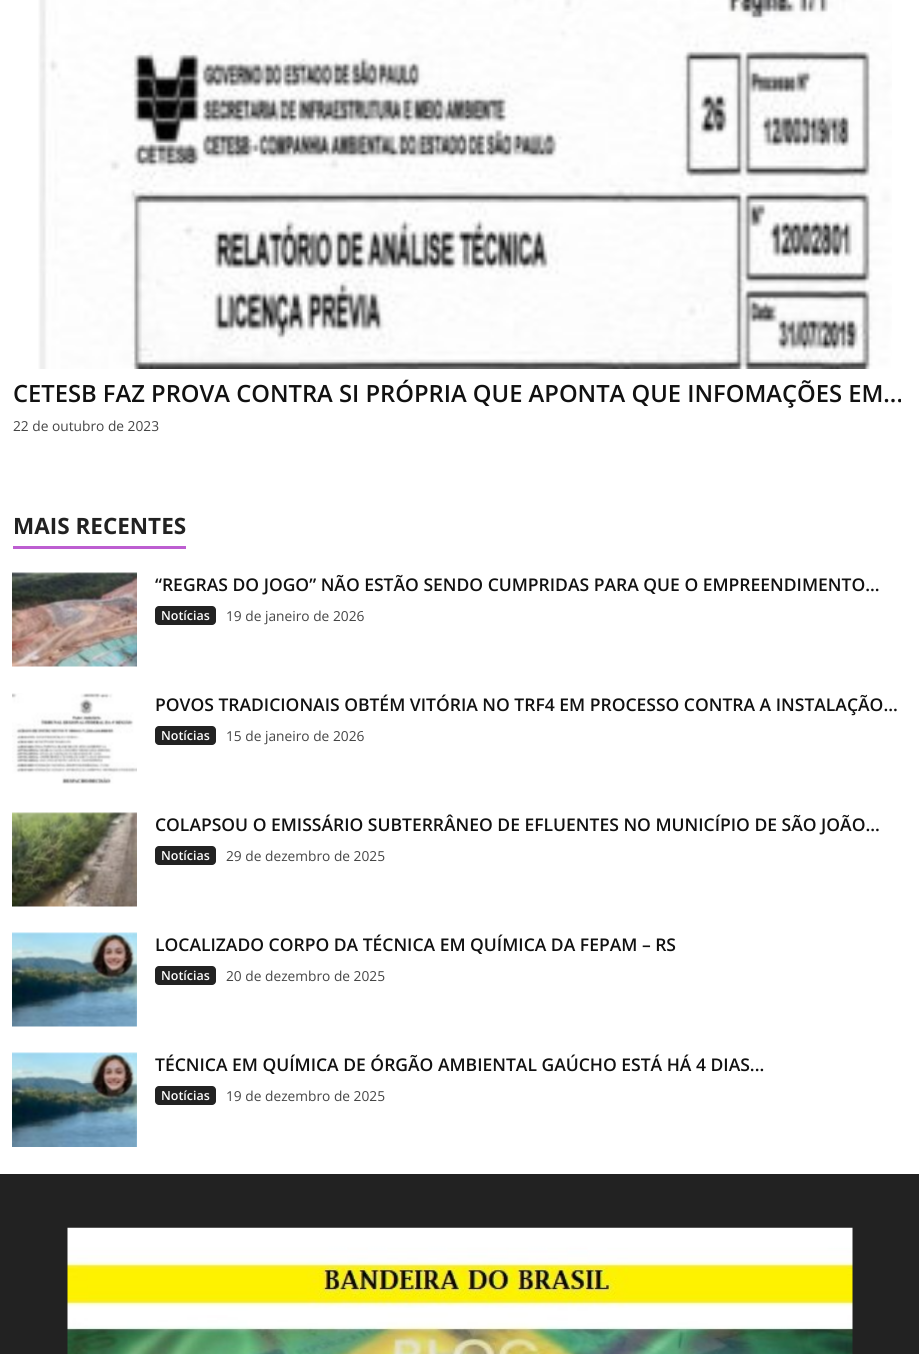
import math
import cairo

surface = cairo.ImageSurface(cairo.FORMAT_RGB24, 919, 1354)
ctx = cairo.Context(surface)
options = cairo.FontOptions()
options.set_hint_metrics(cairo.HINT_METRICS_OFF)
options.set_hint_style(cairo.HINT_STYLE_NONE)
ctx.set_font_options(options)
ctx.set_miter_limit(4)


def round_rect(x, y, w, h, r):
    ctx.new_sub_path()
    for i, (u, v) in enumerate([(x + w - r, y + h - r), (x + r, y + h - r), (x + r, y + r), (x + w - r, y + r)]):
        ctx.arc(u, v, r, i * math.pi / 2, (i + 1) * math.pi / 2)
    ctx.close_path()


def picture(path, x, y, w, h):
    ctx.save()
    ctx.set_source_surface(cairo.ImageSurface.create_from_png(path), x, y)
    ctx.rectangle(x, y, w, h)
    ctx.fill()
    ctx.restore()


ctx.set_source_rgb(0.133, 0.133, 0.133)
ctx.paint()
ctx.set_source_rgb(1, 1, 1)
ctx.rectangle(0, 0, 919, 1174)
ctx.fill()
picture("img1.png", 38, 0, 854, 369)
ctx.select_font_face("Open Sans SemiBold")
ctx.set_font_size(23.75)
ctx.set_source_rgb(0.067, 0.067, 0.067)
ctx.move_to(13, 402)
ctx.show_text("CETESB FAZ PROVA CONTRA SI PRÓPRIA QUE APONTA QUE INFOMAÇÕES EM...")
ctx.select_font_face("Open Sans")
ctx.set_font_size(13.75)
ctx.set_source_rgb(0.267, 0.267, 0.267)
ctx.move_to(13, 431)
ctx.show_text("22 de outubro de 2023")
ctx.select_font_face("Open Sans", cairo.FONT_SLANT_NORMAL, cairo.FONT_WEIGHT_BOLD)
ctx.set_font_size(22.5)
ctx.set_source_rgb(0.133, 0.133, 0.133)
ctx.move_to(13, 534)
ctx.show_text("MAIS RECENTES")
ctx.set_source_rgb(0.741, 0.369, 0.82)
ctx.rectangle(13, 546, 173, 3)
ctx.fill()
picture("img2.png", 12, 572, 125, 95)
ctx.select_font_face("Open Sans SemiBold")
ctx.set_font_size(17.5)
ctx.set_source_rgb(0.067, 0.067, 0.067)
ctx.move_to(155, 591)
ctx.show_text("“REGRAS DO JOGO” NÃO ESTÃO SENDO CUMPRIDAS PARA QUE O EMPREENDIMENTO...")
ctx.set_source_rgb(0.133, 0.133, 0.133)
round_rect(155, 606, 61, 19, 4)
ctx.fill()
ctx.set_font_size(12.5)
ctx.set_source_rgb(1, 1, 1)
ctx.move_to(161, 620)
ctx.show_text("Notícias")
ctx.select_font_face("Open Sans")
ctx.set_font_size(13.75)
ctx.set_source_rgb(0.267, 0.267, 0.267)
ctx.move_to(226, 621)
ctx.show_text("19 de janeiro de 2026")
picture("img3.png", 12, 693, 125, 91)
ctx.select_font_face("Open Sans SemiBold")
ctx.set_font_size(17.5)
ctx.set_source_rgb(0.067, 0.067, 0.067)
ctx.move_to(155, 711)
ctx.show_text("POVOS TRADICIONAIS OBTÉM VITÓRIA NO TRF4 EM PROCESSO CONTRA A INSTALAÇÃO...")
ctx.set_source_rgb(0.133, 0.133, 0.133)
round_rect(155, 726, 61, 19, 4)
ctx.fill()
ctx.set_font_size(12.5)
ctx.set_source_rgb(1, 1, 1)
ctx.move_to(161, 740)
ctx.show_text("Notícias")
ctx.select_font_face("Open Sans")
ctx.set_font_size(13.75)
ctx.set_source_rgb(0.267, 0.267, 0.267)
ctx.move_to(226, 741)
ctx.show_text("15 de janeiro de 2026")
picture("img4.png", 12, 812, 125, 95)
ctx.select_font_face("Open Sans SemiBold")
ctx.set_font_size(17.5)
ctx.set_source_rgb(0.067, 0.067, 0.067)
ctx.move_to(155, 831)
ctx.show_text("COLAPSOU O EMISSÁRIO SUBTERRÂNEO DE EFLUENTES NO MUNICÍPIO DE SÃO JOÃO...")
ctx.set_source_rgb(0.133, 0.133, 0.133)
round_rect(155, 846, 61, 19, 4)
ctx.fill()
ctx.set_font_size(12.5)
ctx.set_source_rgb(1, 1, 1)
ctx.move_to(161, 860)
ctx.show_text("Notícias")
ctx.select_font_face("Open Sans")
ctx.set_font_size(13.75)
ctx.set_source_rgb(0.267, 0.267, 0.267)
ctx.move_to(226, 861)
ctx.show_text("29 de dezembro de 2025")
picture("img5.png", 12, 932, 125, 95)
ctx.select_font_face("Open Sans SemiBold")
ctx.set_font_size(17.5)
ctx.set_source_rgb(0.067, 0.067, 0.067)
ctx.move_to(155, 951)
ctx.show_text("LOCALIZADO CORPO DA TÉCNICA EM QUÍMICA DA FEPAM – RS")
ctx.set_source_rgb(0.133, 0.133, 0.133)
round_rect(155, 966, 61, 19, 4)
ctx.fill()
ctx.set_font_size(12.5)
ctx.set_source_rgb(1, 1, 1)
ctx.move_to(161, 980)
ctx.show_text("Notícias")
ctx.select_font_face("Open Sans")
ctx.set_font_size(13.75)
ctx.set_source_rgb(0.267, 0.267, 0.267)
ctx.move_to(226, 981)
ctx.show_text("20 de dezembro de 2025")
picture("img6.png", 12, 1052, 125, 95)
ctx.select_font_face("Open Sans SemiBold")
ctx.set_font_size(17.5)
ctx.set_source_rgb(0.067, 0.067, 0.067)
ctx.move_to(155, 1071)
ctx.show_text("TÉCNICA EM QUÍMICA DE ÓRGÃO AMBIENTAL GAÚCHO ESTÁ HÁ 4 DIAS...")
ctx.set_source_rgb(0.133, 0.133, 0.133)
round_rect(155, 1086, 61, 19, 4)
ctx.fill()
ctx.set_font_size(12.5)
ctx.set_source_rgb(1, 1, 1)
ctx.move_to(161, 1100)
ctx.show_text("Notícias")
ctx.select_font_face("Open Sans")
ctx.set_font_size(13.75)
ctx.set_source_rgb(0.267, 0.267, 0.267)
ctx.move_to(226, 1101)
ctx.show_text("19 de dezembro de 2025")
picture("img7.png", 67, 1227, 786, 127)
surface.write_to_png("page.png")
